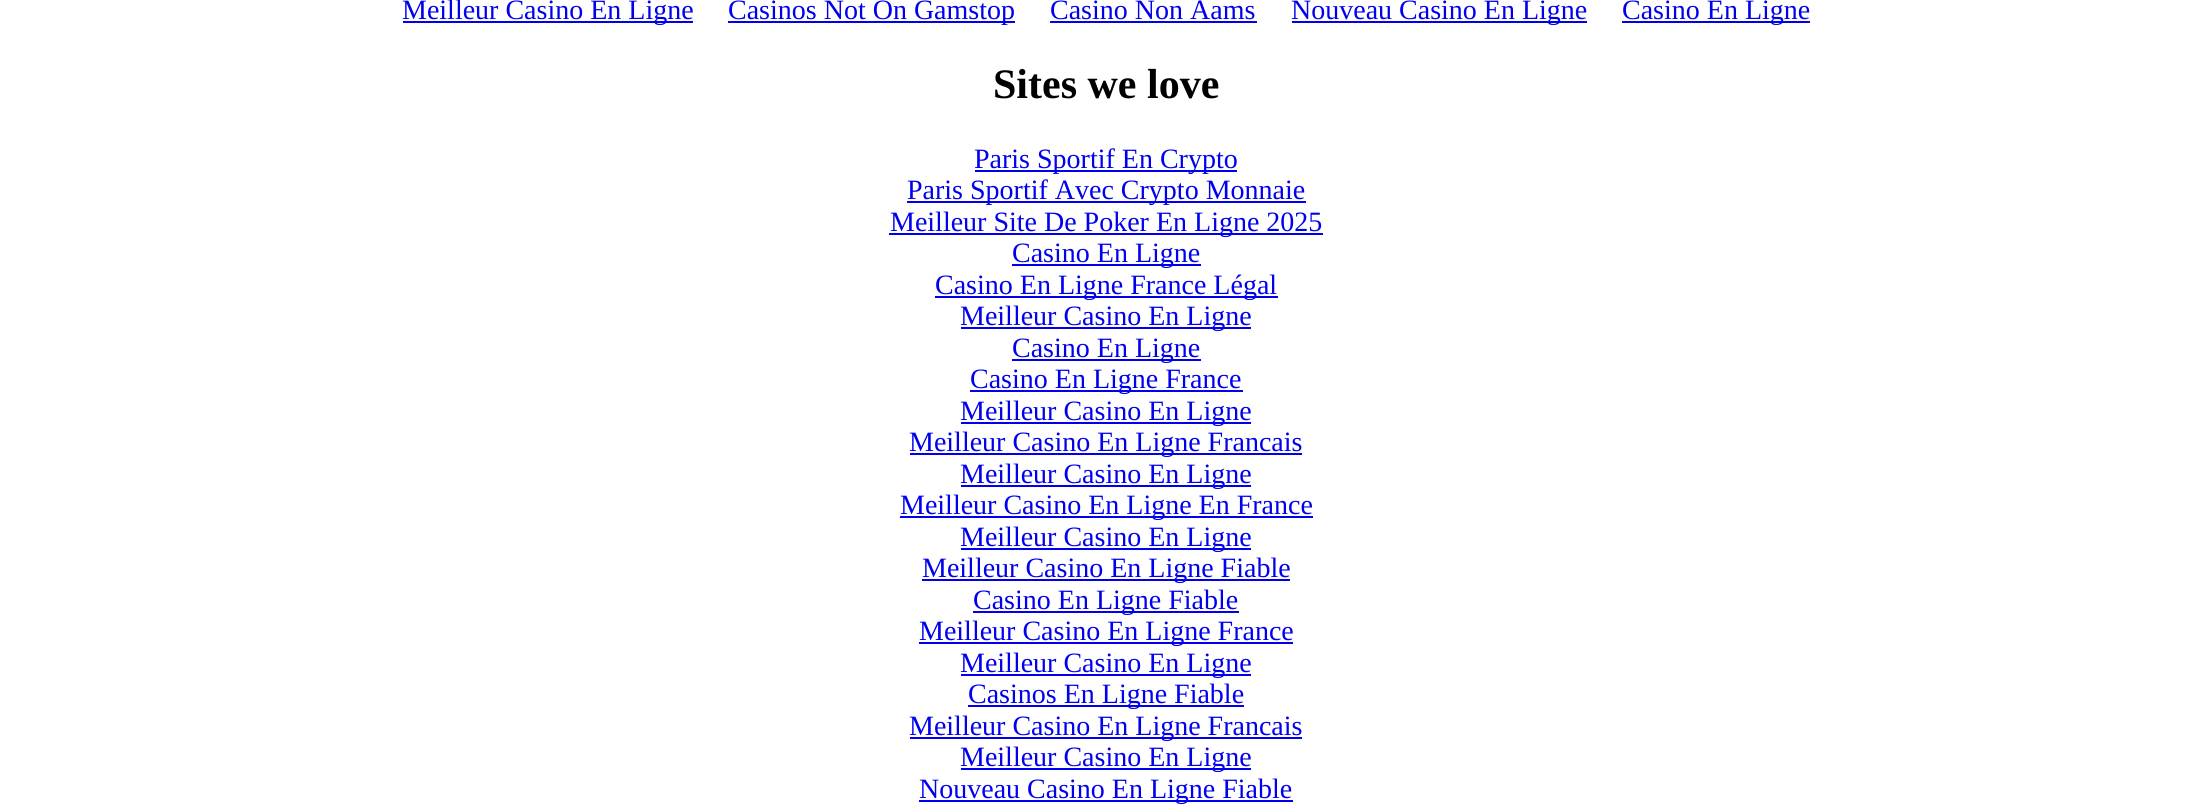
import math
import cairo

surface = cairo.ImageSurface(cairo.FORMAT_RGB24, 2212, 807)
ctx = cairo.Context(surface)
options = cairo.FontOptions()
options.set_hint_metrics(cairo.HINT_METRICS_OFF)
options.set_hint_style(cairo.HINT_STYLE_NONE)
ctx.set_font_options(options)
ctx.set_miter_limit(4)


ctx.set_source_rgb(1, 1, 1)
ctx.paint()
ctx.set_source_rgb(0, 0, 0.933)
ctx.rectangle(403, 21, 290, 2)
ctx.fill()
ctx.select_font_face("Liberation Serif")
ctx.set_font_size(28)
ctx.move_to(402, 19)
ctx.show_text("Meilleur Casino En Ligne")
ctx.rectangle(728, 21, 287, 2)
ctx.fill()
ctx.move_to(728, 19)
ctx.show_text("Casinos Not On Gamstop")
ctx.move_to(1050, 19)
ctx.show_text("Casino Non Aams")
ctx.rectangle(1050, 21, 207, 2)
ctx.fill()
ctx.rectangle(1292, 21, 295, 2)
ctx.fill()
ctx.move_to(1291, 19)
ctx.show_text("Nouveau Casino En Ligne")
ctx.rectangle(1622, 21, 188, 2)
ctx.fill()
ctx.move_to(1622, 19)
ctx.show_text("Casino En Ligne")
ctx.select_font_face("Liberation Serif", cairo.FONT_SLANT_NORMAL, cairo.FONT_WEIGHT_BOLD)
ctx.set_font_size(42)
ctx.set_source_rgb(0, 0, 0)
ctx.move_to(993, 98)
ctx.show_text("Sites we love")
ctx.set_source_rgb(0, 0, 0.933)
ctx.rectangle(975, 170, 262, 2)
ctx.fill()
ctx.select_font_face("Liberation Serif")
ctx.set_font_size(28)
ctx.move_to(974, 168)
ctx.show_text("Paris Sportif En Crypto")
ctx.rectangle(907, 201, 399, 2)
ctx.fill()
ctx.move_to(907, 199)
ctx.show_text("Paris Sportif Avec Crypto Monnaie")
ctx.rectangle(889, 233, 434, 2)
ctx.fill()
ctx.move_to(890, 231)
ctx.show_text("Meilleur Site De Poker En Ligne 2025")
ctx.rectangle(1012, 264, 189, 2)
ctx.fill()
ctx.move_to(1012, 262)
ctx.show_text("Casino En Ligne")
ctx.rectangle(935, 296, 343, 2)
ctx.fill()
ctx.move_to(935, 294)
ctx.show_text("Casino En Ligne France Légal")
ctx.rectangle(961, 327, 290, 2)
ctx.fill()
ctx.move_to(960, 325)
ctx.show_text("Meilleur Casino En Ligne")
ctx.rectangle(1012, 359, 189, 2)
ctx.fill()
ctx.move_to(1012, 357)
ctx.show_text("Casino En Ligne")
ctx.rectangle(970, 390, 273, 2)
ctx.fill()
ctx.move_to(970, 388)
ctx.show_text("Casino En Ligne France")
ctx.rectangle(961, 422, 290, 2)
ctx.fill()
ctx.move_to(960, 420)
ctx.show_text("Meilleur Casino En Ligne")
ctx.rectangle(910, 453, 392, 2)
ctx.fill()
ctx.move_to(909, 451)
ctx.show_text("Meilleur Casino En Ligne Francais")
ctx.rectangle(961, 485, 290, 2)
ctx.fill()
ctx.move_to(960, 483)
ctx.show_text("Meilleur Casino En Ligne")
ctx.rectangle(900, 516, 413, 2)
ctx.fill()
ctx.move_to(900, 514)
ctx.show_text("Meilleur Casino En Ligne En France")
ctx.rectangle(961, 548, 290, 2)
ctx.fill()
ctx.move_to(960, 546)
ctx.show_text("Meilleur Casino En Ligne")
ctx.rectangle(922, 579, 368, 2)
ctx.fill()
ctx.move_to(922, 577)
ctx.show_text("Meilleur Casino En Ligne Fiable")
ctx.rectangle(973, 611, 266, 2)
ctx.fill()
ctx.move_to(973, 609)
ctx.show_text("Casino En Ligne Fiable")
ctx.rectangle(919, 642, 374, 2)
ctx.fill()
ctx.move_to(919, 640)
ctx.show_text("Meilleur Casino En Ligne France")
ctx.rectangle(961, 674, 290, 2)
ctx.fill()
ctx.move_to(960, 672)
ctx.show_text("Meilleur Casino En Ligne")
ctx.rectangle(968, 705, 276, 2)
ctx.fill()
ctx.move_to(968, 703)
ctx.show_text("Casinos En Ligne Fiable")
ctx.rectangle(910, 737, 392, 2)
ctx.fill()
ctx.move_to(909, 735)
ctx.show_text("Meilleur Casino En Ligne Francais")
ctx.rectangle(961, 768, 290, 2)
ctx.fill()
ctx.move_to(960, 766)
ctx.show_text("Meilleur Casino En Ligne")
ctx.rectangle(919, 800, 374, 2)
ctx.fill()
ctx.move_to(919, 798)
ctx.show_text("Nouveau Casino En Ligne Fiable")
surface.write_to_png("page.png")
